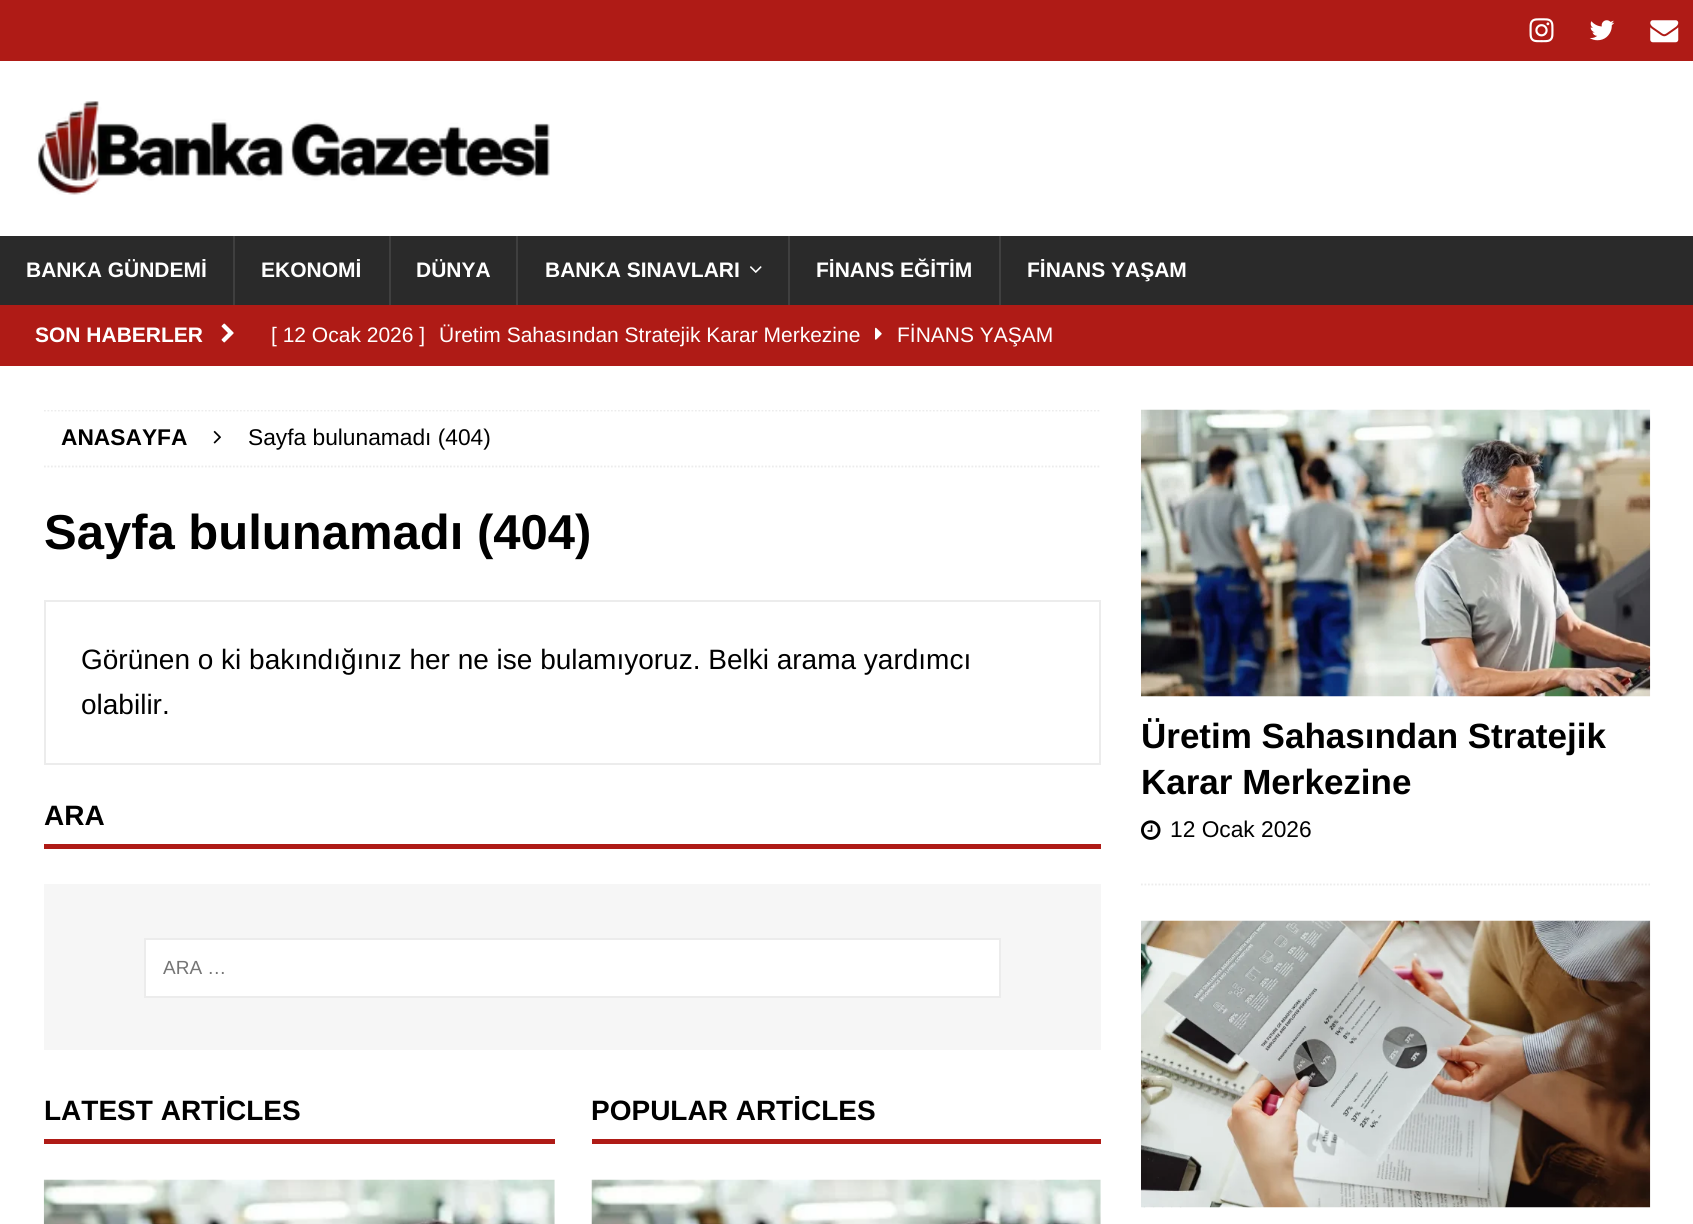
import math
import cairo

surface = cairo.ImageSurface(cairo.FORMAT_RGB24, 1693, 1224)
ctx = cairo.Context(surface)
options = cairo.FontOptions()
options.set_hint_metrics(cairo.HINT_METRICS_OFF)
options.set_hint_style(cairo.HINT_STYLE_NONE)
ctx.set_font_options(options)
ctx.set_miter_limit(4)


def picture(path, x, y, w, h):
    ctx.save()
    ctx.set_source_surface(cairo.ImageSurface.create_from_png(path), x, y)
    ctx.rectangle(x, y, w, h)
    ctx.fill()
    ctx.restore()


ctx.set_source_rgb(0.686, 0.106, 0.086)
ctx.paint()
picture("img1.png", 1529, 18, 25, 25)
picture("img2.png", 1589, 20, 26, 21)
picture("img3.png", 1650, 20, 29, 23)
ctx.set_source_rgb(1, 1, 1)
ctx.rectangle(0, 61, 1693, 175)
ctx.fill()
picture("img4.png", 37, 101, 513, 94)
ctx.set_source_rgb(0.165, 0.165, 0.165)
ctx.rectangle(0, 236, 1693, 69)
ctx.fill()
ctx.select_font_face("Liberation Sans", cairo.FONT_SLANT_NORMAL, cairo.FONT_WEIGHT_BOLD)
ctx.set_font_size(21)
ctx.set_source_rgb(1, 1, 1)
ctx.move_to(26, 277)
ctx.show_text("BANKA GÜNDEMİ")
ctx.set_source_rgb(0.247, 0.247, 0.247)
ctx.rectangle(233, 236, 2, 69)
ctx.fill()
ctx.set_source_rgb(1, 1, 1)
ctx.move_to(261, 277)
ctx.show_text("EKONOMİ")
ctx.set_source_rgb(0.247, 0.247, 0.247)
ctx.rectangle(389, 236, 2, 69)
ctx.fill()
ctx.set_source_rgb(1, 1, 1)
ctx.move_to(416, 277)
ctx.show_text("DÜNYA")
ctx.set_source_rgb(0.247, 0.247, 0.247)
ctx.rectangle(516, 236, 2, 69)
ctx.fill()
ctx.set_source_rgb(1, 1, 1)
ctx.move_to(545, 277)
ctx.show_text("BANKA SINAVLARI")
picture("img5.png", 750, 266, 12, 7)
ctx.set_source_rgb(0.247, 0.247, 0.247)
ctx.rectangle(788, 236, 2, 69)
ctx.fill()
ctx.set_source_rgb(1, 1, 1)
ctx.move_to(816, 277)
ctx.show_text("FİNANS EĞİTİM")
ctx.set_source_rgb(0.247, 0.247, 0.247)
ctx.rectangle(999, 236, 2, 69)
ctx.fill()
ctx.set_source_rgb(1, 1, 1)
ctx.move_to(1027, 277)
ctx.show_text("FİNANS YAŞAM")
ctx.move_to(35, 342)
ctx.show_text("SON HABERLER")
picture("img6.png", 221, 323, 13, 20)
ctx.select_font_face("Liberation Sans")
ctx.move_to(271, 342)
ctx.show_text("[ 12 Ocak 2026 ]")
ctx.move_to(439, 342)
ctx.show_text("Üretim Sahasından Stratejik Karar Merkezine")
picture("img7.png", 875, 327, 7, 13)
ctx.move_to(897, 342)
ctx.show_text("FİNANS YAŞAM")
ctx.rectangle(0, 366, 1693, 858)
ctx.fill()
ctx.save()
ctx.rectangle(44, 410, 1057, 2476)
ctx.clip()
ctx.new_path()
ctx.move_to(44, 410.5)
ctx.line_to(1101, 410.5)
ctx.set_source_rgb(0.922, 0.922, 0.922)
ctx.set_line_width(1.8)
ctx.set_dash([1.75, 1.75])
ctx.stroke()
ctx.restore()
ctx.new_path()
ctx.move_to(44, 466.5)
ctx.line_to(1101, 466.5)
ctx.set_source_rgb(0.922, 0.922, 0.922)
ctx.set_line_width(1.8)
ctx.set_dash([1.75, 1.75])
ctx.stroke()
ctx.select_font_face("Liberation Sans", cairo.FONT_SLANT_NORMAL, cairo.FONT_WEIGHT_BOLD)
ctx.set_font_size(22.75)
ctx.set_source_rgb(0, 0, 0)
ctx.move_to(61, 445)
ctx.show_text("ANASAYFA")
picture("img8.png", 213, 430, 8, 14)
ctx.select_font_face("Liberation Sans")
ctx.move_to(248, 445)
ctx.show_text("Sayfa bulunamadı (404)")
ctx.select_font_face("Liberation Sans", cairo.FONT_SLANT_NORMAL, cairo.FONT_WEIGHT_BOLD)
ctx.set_font_size(49)
ctx.move_to(44, 549)
ctx.show_text("Sayfa bulunamadı (404)")
ctx.rectangle(45, 601, 1055, 163)
ctx.set_source_rgb(0.922, 0.922, 0.922)
ctx.set_line_width(2)
ctx.set_dash([])
ctx.stroke()
ctx.select_font_face("Liberation Sans")
ctx.set_font_size(28)
ctx.set_source_rgb(0, 0, 0)
ctx.move_to(81, 669)
ctx.show_text("Görünen o ki bakındığınız her ne ise bulamıyoruz. Belki arama yardımcı")
ctx.move_to(81, 714)
ctx.show_text("olabilir.")
ctx.set_source_rgb(0.686, 0.106, 0.086)
ctx.rectangle(44, 844, 1057, 5)
ctx.fill()
ctx.select_font_face("Liberation Sans", cairo.FONT_SLANT_NORMAL, cairo.FONT_WEIGHT_BOLD)
ctx.set_source_rgb(0, 0, 0)
ctx.move_to(44, 825)
ctx.show_text("ARA")
ctx.set_source_rgb(0.961, 0.961, 0.961)
ctx.rectangle(44, 884, 1057, 166)
ctx.fill()
ctx.set_source_rgb(1, 1, 1)
ctx.rectangle(145, 939, 855, 58)
ctx.fill_preserve()
ctx.set_source_rgb(0.922, 0.922, 0.922)
ctx.stroke()
ctx.select_font_face("Liberation Sans")
ctx.set_font_size(19)
ctx.set_source_rgb(0.459, 0.459, 0.459)
ctx.move_to(163, 974)
ctx.show_text("ARA …")
ctx.set_source_rgb(0.686, 0.106, 0.086)
ctx.rectangle(44, 1139, 511, 5)
ctx.fill()
ctx.select_font_face("Liberation Sans", cairo.FONT_SLANT_NORMAL, cairo.FONT_WEIGHT_BOLD)
ctx.set_font_size(28)
ctx.set_source_rgb(0, 0, 0)
ctx.move_to(44, 1120)
ctx.show_text("LATEST ARTİCLES")
picture("img9.png", 43, 1179, 512, 45)
ctx.set_source_rgb(0.686, 0.106, 0.086)
ctx.rectangle(592, 1139, 509, 5)
ctx.fill()
ctx.set_source_rgb(0, 0, 0)
ctx.move_to(591, 1120)
ctx.show_text("POPULAR ARTİCLES")
picture("img10.png", 591, 1179, 510, 45)
ctx.new_path()
ctx.move_to(1141, 884.5)
ctx.line_to(1650, 884.5)
ctx.set_source_rgb(0.922, 0.922, 0.922)
ctx.set_line_width(1.8)
ctx.set_dash([1.75, 1.75])
ctx.stroke()
picture("img11.png", 1141, 409, 510, 288)
ctx.set_font_size(35)
ctx.set_source_rgb(0, 0, 0)
ctx.move_to(1141, 748)
ctx.show_text("Üretim Sahasından Stratejik")
ctx.move_to(1141, 794)
ctx.show_text("Karar Merkezine")
picture("img12.png", 1141, 820, 20, 20)
ctx.select_font_face("Liberation Sans")
ctx.set_font_size(22.75)
ctx.move_to(1170, 837)
ctx.show_text("12 Ocak 2026")
picture("img13.png", 1141, 920, 510, 288)
surface.write_to_png("page.png")
